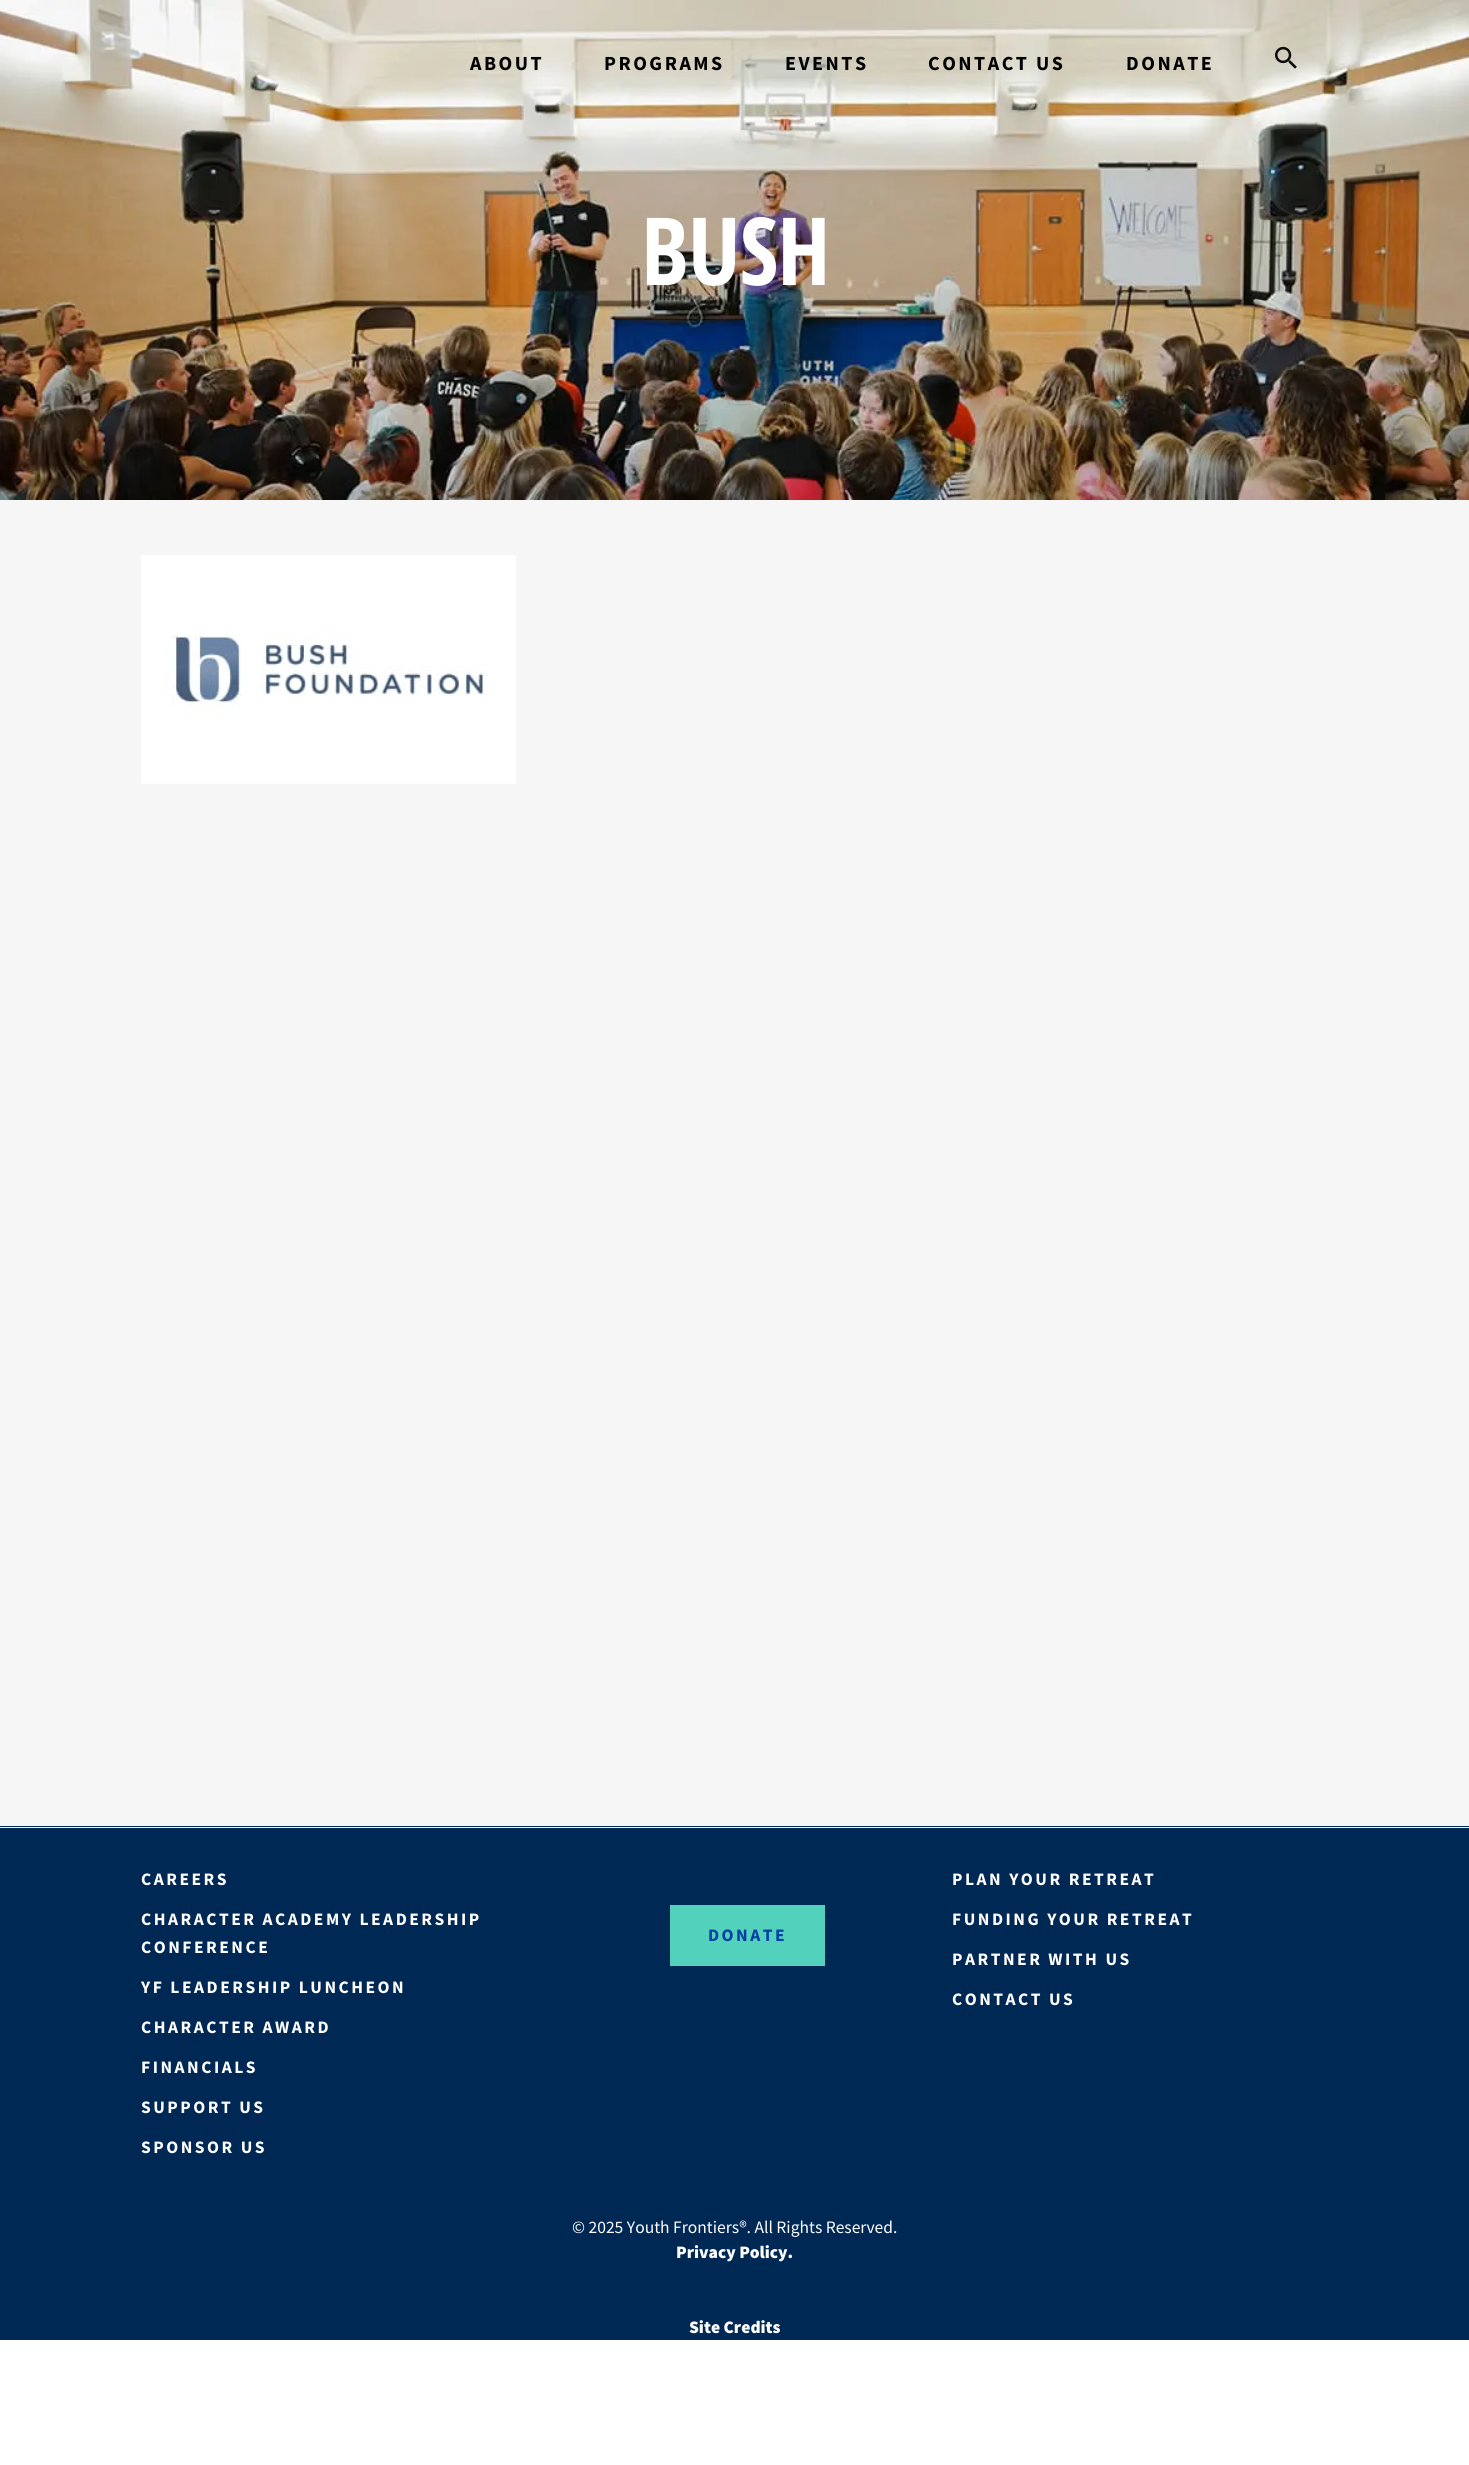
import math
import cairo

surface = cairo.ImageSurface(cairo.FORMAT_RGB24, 1469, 2465)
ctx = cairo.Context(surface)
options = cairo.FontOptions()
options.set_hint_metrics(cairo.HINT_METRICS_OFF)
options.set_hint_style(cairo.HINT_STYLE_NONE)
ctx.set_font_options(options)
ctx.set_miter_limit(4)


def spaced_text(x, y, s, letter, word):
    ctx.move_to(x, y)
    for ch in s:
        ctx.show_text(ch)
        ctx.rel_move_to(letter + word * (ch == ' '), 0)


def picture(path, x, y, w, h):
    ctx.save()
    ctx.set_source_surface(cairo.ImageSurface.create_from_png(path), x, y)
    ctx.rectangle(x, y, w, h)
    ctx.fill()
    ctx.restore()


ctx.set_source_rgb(1, 1, 1)
ctx.paint()
ctx.set_source_rgb(0.961, 0.961, 0.961)
ctx.rectangle(0, 500, 1469, 1328)
ctx.fill()
picture("img2.png", 0, 0, 1469, 500)
ctx.select_font_face("Source Sans Pro", cairo.FONT_SLANT_NORMAL, cairo.FONT_WEIGHT_BOLD)
ctx.set_font_size(20)
ctx.set_source_rgb(0, 0, 0)
spaced_text(470, 70, "ABOUT", 2.5, 0)
spaced_text(604, 70, "PROGRAMS", 2.5, 0)
spaced_text(785, 70, "EVENTS", 2.5, 0)
spaced_text(928, 70, "CONTACT US", 2.5, 0)
spaced_text(1126, 70, "DONATE", 2.5, 0)
picture("img1.png", 1275, 46, 22, 23)
ctx.select_font_face("Open Sans Condensed", cairo.FONT_SLANT_NORMAL, cairo.FONT_WEIGHT_BOLD)
ctx.set_font_size(94)
ctx.set_source_rgb(1, 1, 1)
spaced_text(641, 285, "BUSH", -1, 0)
picture("img3.png", 141, 555, 375, 229)
ctx.set_source_rgb(0, 0.157, 0.333)
ctx.rectangle(0, 1826, 1469, 1)
ctx.fill()
ctx.rectangle(0, 1828, 1469, 512)
ctx.fill()
ctx.select_font_face("Source Sans Pro", cairo.FONT_SLANT_NORMAL, cairo.FONT_WEIGHT_BOLD)
ctx.set_font_size(17.5)
ctx.set_source_rgb(1, 1, 1)
spaced_text(141, 1885, "CAREERS", 2.5, 0)
spaced_text(141, 1925, "CHARACTER ACADEMY LEADERSHIP", 2.5, 0)
spaced_text(141, 1953, "CONFERENCE", 2.5, 0)
spaced_text(141, 1993, "YF LEADERSHIP LUNCHEON", 2.5, 0)
spaced_text(141, 2033, "CHARACTER AWARD", 2.5, 0)
spaced_text(141, 2073, "FINANCIALS", 2.5, 0)
spaced_text(141, 2113, "SUPPORT US", 2.5, 0)
spaced_text(141, 2153, "SPONSOR US", 2.5, 0)
ctx.set_source_rgb(0.322, 0.824, 0.737)
ctx.rectangle(670, 1905, 155, 61)
ctx.fill()
ctx.set_source_rgb(0, 0.239, 0.647)
spaced_text(708, 1941, "DONATE", 2.5, 0)
ctx.set_source_rgb(1, 1, 1)
spaced_text(952, 1885, "PLAN YOUR RETREAT", 2.5, 0)
spaced_text(952, 1925, "FUNDING YOUR RETREAT", 2.5, 0)
spaced_text(952, 1965, "PARTNER WITH US", 2.5, 0)
spaced_text(952, 2005, "CONTACT US", 2.5, 0)
ctx.select_font_face("Source Sans Pro")
ctx.move_to(572, 2233)
ctx.show_text("© 2025 Youth Frontiers®. All Rights Reserved.")
ctx.select_font_face("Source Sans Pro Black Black")
ctx.move_to(676, 2258)
ctx.show_text("Privacy Policy.")
ctx.move_to(689, 2333)
ctx.show_text("Site Credits")
surface.write_to_png("page.png")
